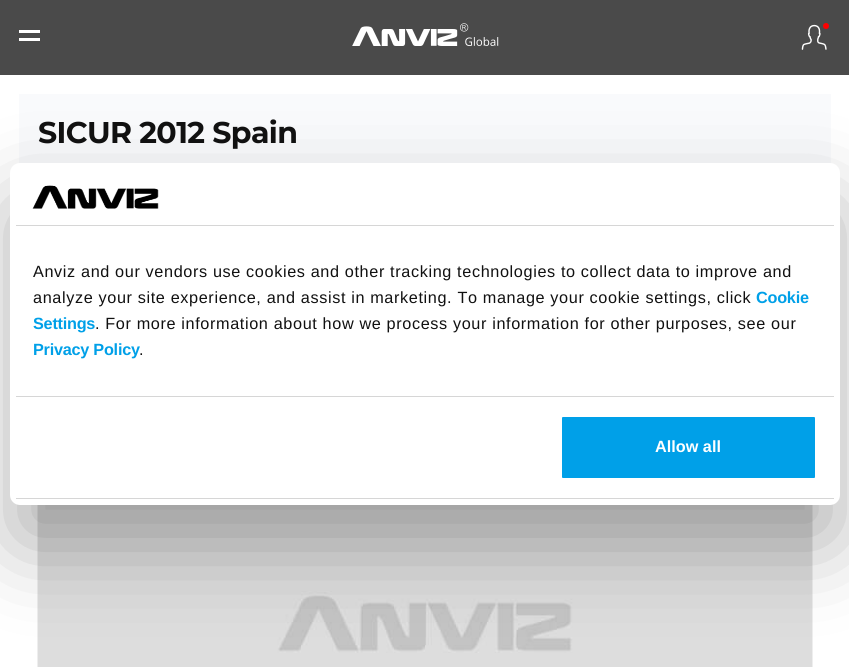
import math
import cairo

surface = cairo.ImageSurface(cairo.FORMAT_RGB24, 849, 667)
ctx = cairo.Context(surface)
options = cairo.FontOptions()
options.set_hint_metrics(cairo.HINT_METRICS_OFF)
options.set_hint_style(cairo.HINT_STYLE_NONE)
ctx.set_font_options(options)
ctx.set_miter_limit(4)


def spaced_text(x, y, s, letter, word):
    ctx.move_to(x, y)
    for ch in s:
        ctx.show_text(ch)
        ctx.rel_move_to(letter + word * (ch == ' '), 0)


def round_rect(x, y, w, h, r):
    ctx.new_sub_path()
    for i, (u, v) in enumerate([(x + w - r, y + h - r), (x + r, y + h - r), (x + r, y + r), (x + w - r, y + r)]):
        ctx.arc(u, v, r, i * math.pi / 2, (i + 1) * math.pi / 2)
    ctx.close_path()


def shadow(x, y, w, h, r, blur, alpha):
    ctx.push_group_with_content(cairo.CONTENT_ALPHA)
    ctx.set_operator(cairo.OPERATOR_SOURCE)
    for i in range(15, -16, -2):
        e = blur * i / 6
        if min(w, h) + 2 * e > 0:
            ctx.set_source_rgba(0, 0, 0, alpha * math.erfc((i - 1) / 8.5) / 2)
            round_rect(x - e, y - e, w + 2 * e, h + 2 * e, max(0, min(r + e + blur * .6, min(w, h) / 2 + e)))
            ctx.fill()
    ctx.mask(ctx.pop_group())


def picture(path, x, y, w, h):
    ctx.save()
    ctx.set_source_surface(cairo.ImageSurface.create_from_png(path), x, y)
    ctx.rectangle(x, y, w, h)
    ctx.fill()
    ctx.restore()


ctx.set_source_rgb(1, 1, 1)
ctx.paint()
ctx.set_source_rgb(0.29, 0.29, 0.29)
ctx.rectangle(0, 0, 849, 75)
ctx.fill()
ctx.set_source_rgb(1, 1, 1)
ctx.rectangle(19, 30, 21, 3)
ctx.fill()
ctx.rectangle(19, 38, 21, 3)
ctx.fill()
picture("img1.png", 352, 23, 147, 23)
picture("img2.png", 801, 24, 26, 26)
ctx.set_source_rgb(1, 0, 0)
ctx.arc(826, 26, 3, 0, 2 * math.pi)
ctx.fill()
ctx.set_source_rgb(0.973, 0.98, 0.988)
ctx.rectangle(19, 94, 812, 70)
ctx.fill()
ctx.select_font_face("Montserrat", cairo.FONT_SLANT_NORMAL, cairo.FONT_WEIGHT_BOLD)
ctx.set_font_size(30)
ctx.set_source_rgb(0.067, 0.067, 0.067)
spaced_text(38, 143, "SICUR 2012 Spain", -0.6, 0)
picture("img3.png", 37, 505, 776, 162)
ctx.set_source_rgb(0, 0, 0)
shadow(10, 203, 830, 342, 10, 42.5, 0.3)
ctx.set_source_rgb(1, 1, 1)
round_rect(10, 163, 830, 342, 10)
ctx.fill()
ctx.set_source_rgb(0.839, 0.839, 0.839)
ctx.rectangle(16, 225, 818, 1)
ctx.fill()
picture("img4.png", 32, 185, 127, 24)
ctx.rectangle(16, 396, 818, 1)
ctx.fill()
ctx.select_font_face("Liberation Sans")
ctx.set_font_size(16.25)
ctx.set_source_rgb(0.067, 0.067, 0.067)
spaced_text(33, 277, "Anviz and our vendors use cookies and other tracking technologies to collect data to improve and", 0.62, 0)
spaced_text(33, 303, "analyze your site experience, and assist in marketing. To manage your cookie settings, click", 0.62, 0)
ctx.select_font_face("Liberation Sans", cairo.FONT_SLANT_NORMAL, cairo.FONT_WEIGHT_BOLD)
ctx.set_source_rgb(0, 0.627, 0.91)
spaced_text(756, 303, "Cookie", -0.25, 0)
spaced_text(33, 329, "Settings", -0.25, 0)
ctx.select_font_face("Liberation Sans")
ctx.set_source_rgb(0.067, 0.067, 0.067)
spaced_text(95, 329, ". For more information about how we process your information for other purposes, see our", 0.62, 0)
ctx.select_font_face("Liberation Sans", cairo.FONT_SLANT_NORMAL, cairo.FONT_WEIGHT_BOLD)
ctx.set_source_rgb(0, 0.627, 0.91)
spaced_text(33, 355, "Privacy Policy", -0.25, 0)
ctx.select_font_face("Liberation Sans")
ctx.set_source_rgb(0.067, 0.067, 0.067)
spaced_text(139, 355, ".", 0.62, 0)
ctx.set_source_rgb(0.839, 0.839, 0.839)
ctx.rectangle(16, 498, 818, 1)
ctx.fill()
ctx.set_source_rgb(0, 0.627, 0.91)
round_rect(560.5, 415.5, 256, 64, 2.5)
ctx.fill_preserve()
ctx.set_source_rgb(1, 1, 1)
ctx.set_line_width(3)
ctx.stroke()
ctx.select_font_face("Liberation Sans", cairo.FONT_SLANT_NORMAL, cairo.FONT_WEIGHT_BOLD)
ctx.move_to(655, 452)
ctx.show_text("Allow all")
surface.write_to_png("page.png")
